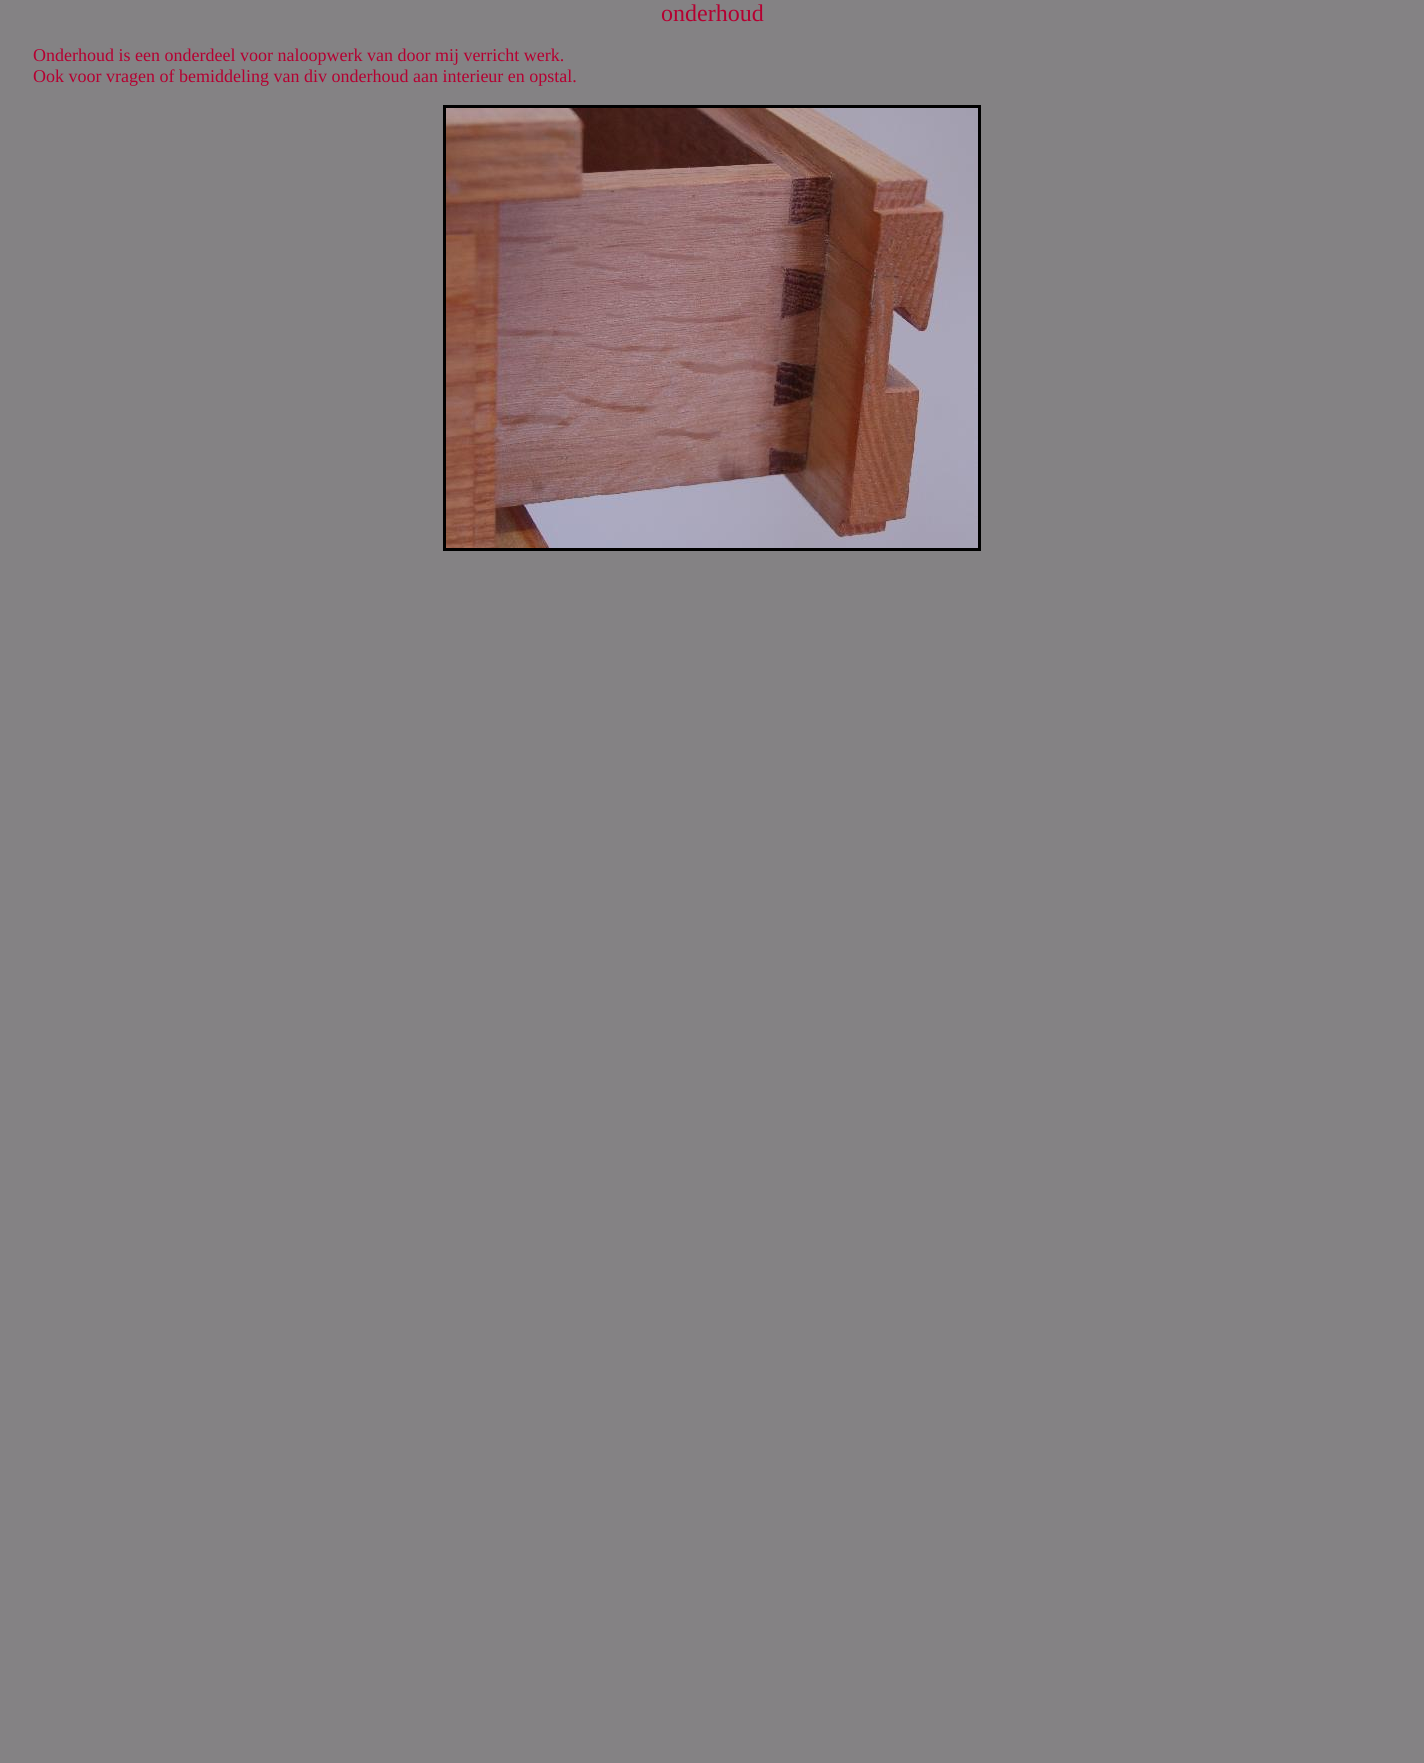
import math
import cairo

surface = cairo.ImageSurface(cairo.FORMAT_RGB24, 1424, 1763)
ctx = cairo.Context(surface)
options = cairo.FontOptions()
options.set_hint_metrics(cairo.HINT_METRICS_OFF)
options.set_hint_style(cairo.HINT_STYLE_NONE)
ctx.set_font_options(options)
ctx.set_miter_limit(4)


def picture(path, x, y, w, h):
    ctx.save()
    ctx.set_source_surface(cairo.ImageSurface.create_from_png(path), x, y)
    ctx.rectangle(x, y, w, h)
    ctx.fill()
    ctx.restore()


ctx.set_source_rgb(0.518, 0.51, 0.518)
ctx.paint()
ctx.select_font_face("Liberation Serif")
ctx.set_font_size(24)
ctx.set_source_rgb(0.71, 0, 0.192)
ctx.move_to(661, 21)
ctx.show_text("onderhoud")
ctx.set_font_size(18)
ctx.move_to(33, 61)
ctx.show_text("Onderhoud is een onderdeel voor naloopwerk van door mij verricht werk.")
ctx.move_to(33, 82)
ctx.show_text("Ook voor vragen of bemiddeling van div onderhoud aan interieur en opstal.")
ctx.rectangle(444.5, 106.5, 535, 443)
ctx.set_source_rgb(0, 0, 0)
ctx.set_line_width(3)
ctx.stroke()
picture("img1.png", 446, 108, 532, 440)
surface.write_to_png("page.png")
